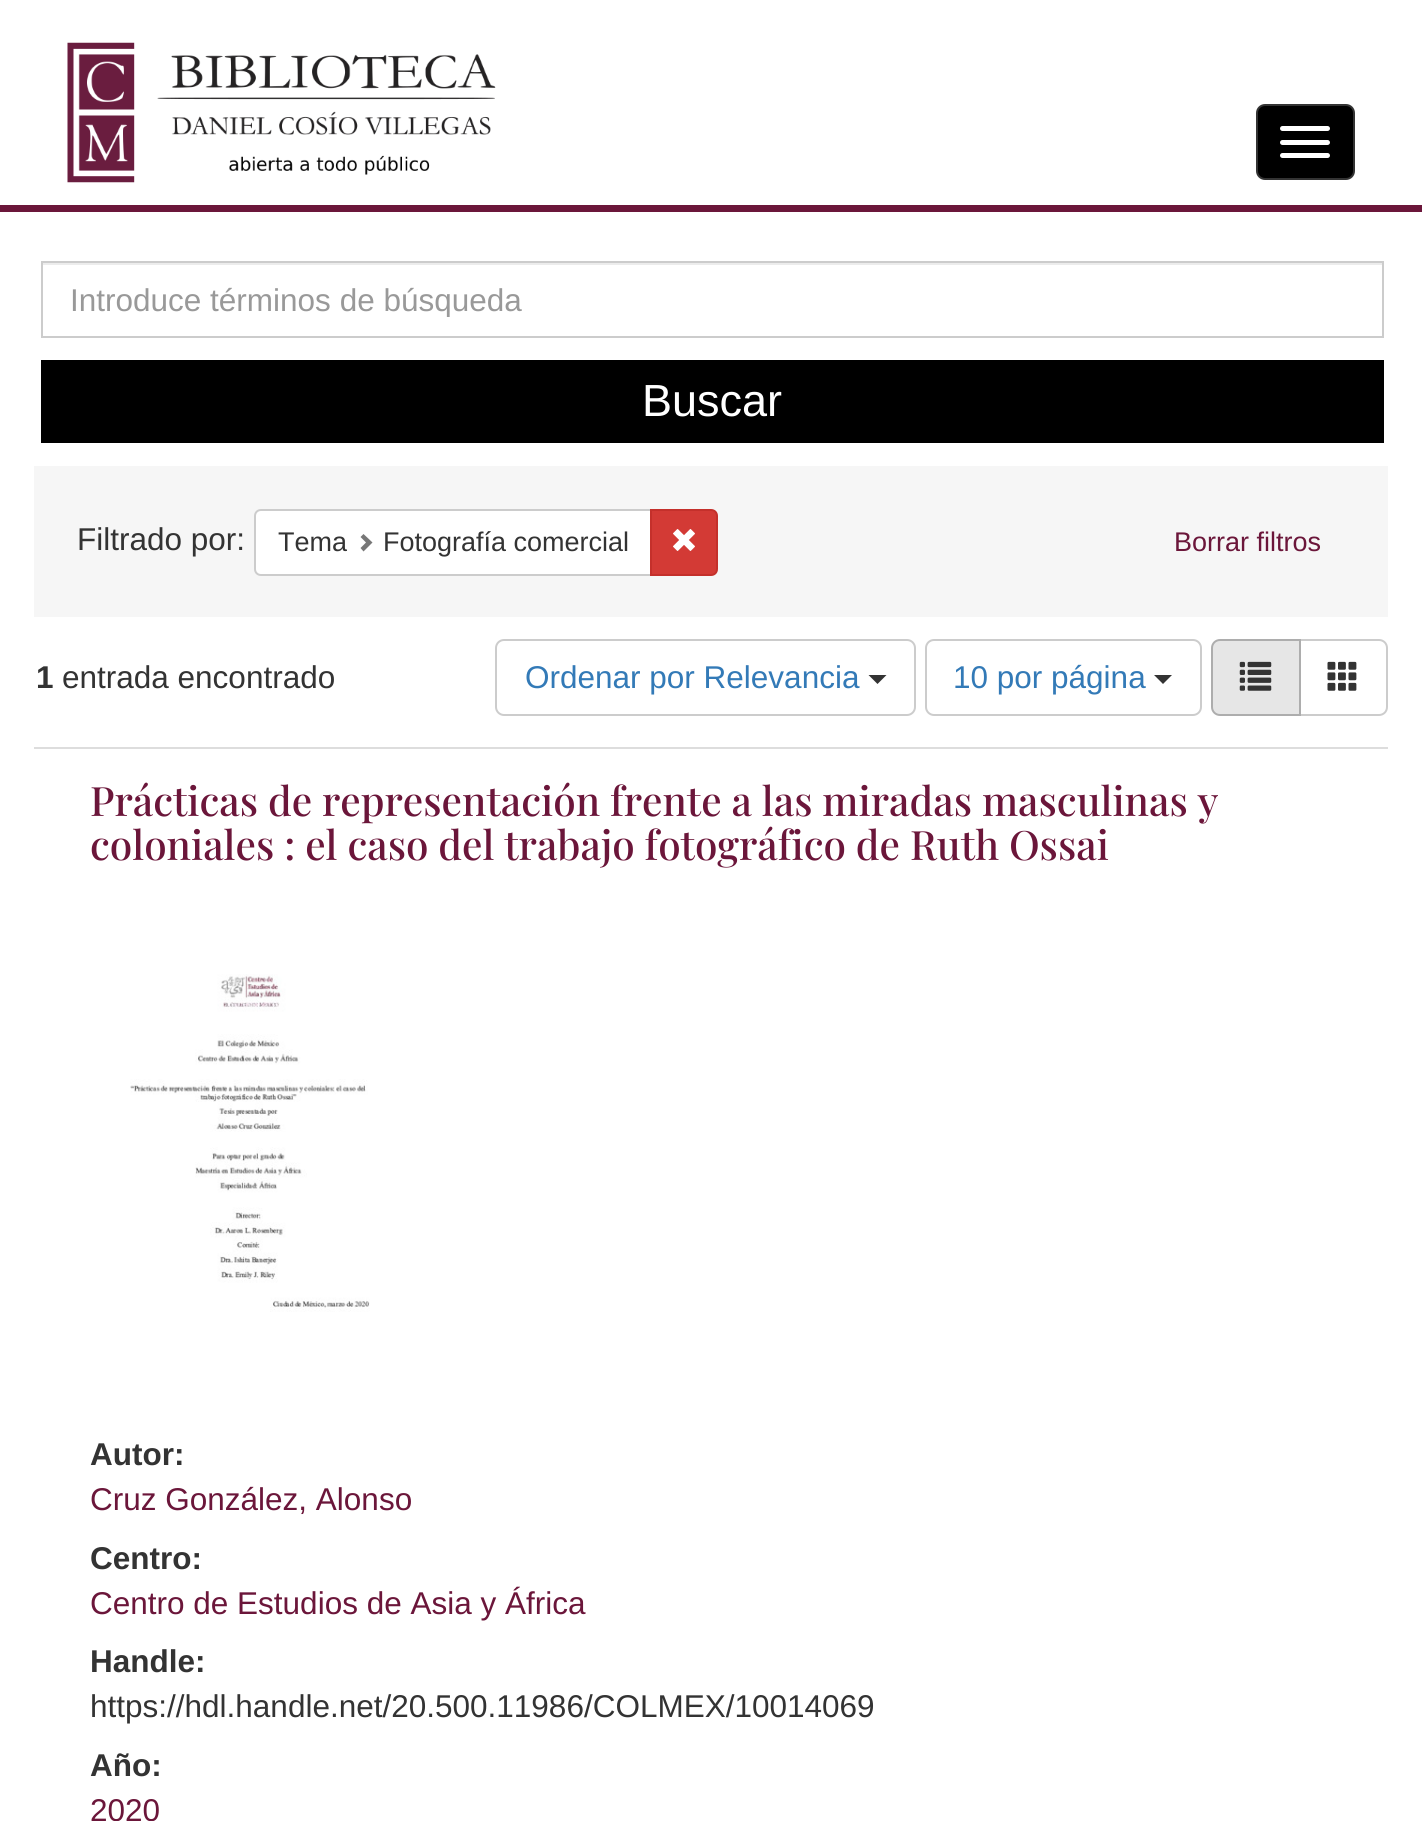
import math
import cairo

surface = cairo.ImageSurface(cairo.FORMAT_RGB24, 1422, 1821)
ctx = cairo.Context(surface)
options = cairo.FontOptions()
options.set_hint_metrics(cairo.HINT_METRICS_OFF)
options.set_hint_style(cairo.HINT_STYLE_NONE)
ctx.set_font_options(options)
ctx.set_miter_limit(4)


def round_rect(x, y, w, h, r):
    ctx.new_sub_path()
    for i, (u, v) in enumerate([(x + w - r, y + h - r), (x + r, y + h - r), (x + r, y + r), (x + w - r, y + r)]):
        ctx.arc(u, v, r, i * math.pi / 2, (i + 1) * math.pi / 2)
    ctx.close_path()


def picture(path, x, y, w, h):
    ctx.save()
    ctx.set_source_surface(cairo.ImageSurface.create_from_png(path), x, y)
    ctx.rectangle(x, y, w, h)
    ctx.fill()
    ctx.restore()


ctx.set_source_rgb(1, 1, 1)
ctx.paint()
ctx.set_source_rgb(0.42, 0.086, 0.227)
ctx.rectangle(0, 205, 1422, 7)
ctx.fill()
picture("img1.png", 67, 42, 429, 141)
ctx.set_source_rgb(0, 0, 0)
round_rect(1257, 105, 97, 74, 8)
ctx.fill_preserve()
ctx.set_source_rgb(0.2, 0.2, 0.2)
ctx.stroke()
ctx.set_source_rgb(1, 1, 1)
round_rect(1280, 126, 50, 5, 2.5)
ctx.fill()
round_rect(1280, 140, 50, 5, 2.5)
ctx.fill()
round_rect(1280, 153, 50, 5, 2.5)
ctx.fill()
ctx.set_source_rgb(0.925, 0.925, 0.925)
ctx.rectangle(43, 263, 1339, 2)
ctx.fill()
ctx.rectangle(42, 262, 1341, 75)
ctx.set_source_rgb(0.8, 0.8, 0.8)
ctx.stroke()
ctx.save()
ctx.rectangle(70, 281, 1285, 36)
ctx.clip()
ctx.select_font_face("Liberation Sans")
ctx.set_font_size(31.5)
ctx.set_source_rgb(0.6, 0.6, 0.6)
ctx.move_to(70, 311)
ctx.show_text("Introduce términos de búsqueda")
ctx.restore()
ctx.set_source_rgb(0, 0, 0)
ctx.rectangle(41, 360, 1343, 83)
ctx.fill()
ctx.select_font_face("Liberation Sans")
ctx.set_font_size(45)
ctx.set_source_rgb(1, 1, 1)
ctx.move_to(642, 416)
ctx.show_text("Buscar")
ctx.set_source_rgb(0.961, 0.961, 0.961)
ctx.rectangle(34, 466, 1354, 151)
ctx.fill()
ctx.set_font_size(31.5)
ctx.set_source_rgb(0.2, 0.2, 0.2)
ctx.move_to(77, 550)
ctx.show_text("Filtrado por:")
ctx.set_source_rgb(1, 1, 1)
ctx.new_path()
ctx.move_to(261, 510)
ctx.line_to(652, 510)
ctx.line_to(652, 575)
ctx.line_to(261, 575)
ctx.curve_to(257.5, 575, 255, 572.5, 255, 569)
ctx.line_to(255, 516)
ctx.curve_to(255, 512.5, 257.5, 510, 261, 510)
ctx.close_path()
ctx.fill_preserve()
ctx.set_source_rgb(0.8, 0.8, 0.8)
ctx.stroke()
ctx.set_font_size(27)
ctx.set_source_rgb(0.2, 0.2, 0.2)
ctx.move_to(278, 551)
ctx.show_text("Tema")
ctx.set_source_rgb(0.467, 0.467, 0.467)
ctx.new_path()
ctx.move_to(372.5, 542.5)
ctx.line_to(363.5, 551.5)
ctx.line_to(360.5, 548)
ctx.line_to(366, 542.5)
ctx.line_to(360.5, 537)
ctx.line_to(363.5, 534)
ctx.close_path()
ctx.fill()
ctx.set_source_rgb(0.2, 0.2, 0.2)
ctx.move_to(383, 551)
ctx.show_text("Fotografía comercial")
ctx.set_source_rgb(0.827, 0.227, 0.208)
ctx.new_path()
ctx.move_to(651, 510)
ctx.line_to(711, 510)
ctx.curve_to(714.5, 510, 717, 512.5, 717, 516)
ctx.line_to(717, 569)
ctx.curve_to(717, 572.5, 714.5, 575, 711, 575)
ctx.line_to(651, 575)
ctx.close_path()
ctx.fill_preserve()
ctx.set_source_rgb(0.769, 0.188, 0.169)
ctx.stroke()
picture("img2.png", 673, 529, 22, 22)
ctx.set_source_rgb(0.42, 0.086, 0.227)
ctx.move_to(1174, 551)
ctx.show_text("Borrar filtros")
ctx.set_source_rgb(0.867, 0.867, 0.867)
ctx.rectangle(34, 747, 1354, 2)
ctx.fill()
ctx.select_font_face("Liberation Sans", cairo.FONT_SLANT_NORMAL, cairo.FONT_WEIGHT_BOLD)
ctx.set_font_size(31.5)
ctx.set_source_rgb(0.2, 0.2, 0.2)
ctx.move_to(36, 688)
ctx.show_text("1")
ctx.select_font_face("Liberation Sans")
ctx.move_to(62, 688)
ctx.show_text("entrada encontrado")
round_rect(496, 640, 419, 75, 8)
ctx.set_source_rgb(0.8, 0.8, 0.8)
ctx.stroke()
ctx.set_source_rgb(0.2, 0.478, 0.718)
ctx.move_to(525, 688)
ctx.show_text("Ordenar por Relevancia")
ctx.set_source_rgb(0.2, 0.2, 0.2)
ctx.new_path()
ctx.move_to(868.5, 675)
ctx.line_to(886.5, 675)
ctx.line_to(877.5, 684)
ctx.close_path()
ctx.fill()
round_rect(926, 640, 275, 75, 8)
ctx.set_source_rgb(0.8, 0.8, 0.8)
ctx.stroke()
ctx.set_source_rgb(0.2, 0.478, 0.718)
ctx.move_to(953, 688)
ctx.show_text("10 por página")
ctx.set_source_rgb(0.2, 0.2, 0.2)
ctx.new_path()
ctx.move_to(1154, 675)
ctx.line_to(1172, 675)
ctx.line_to(1163, 684)
ctx.close_path()
ctx.fill()
ctx.new_path()
ctx.move_to(1299, 640)
ctx.line_to(1379, 640)
ctx.curve_to(1383.5, 640, 1387, 643.5, 1387, 648)
ctx.line_to(1387, 707)
ctx.curve_to(1387, 711.5, 1383.5, 715, 1379, 715)
ctx.line_to(1299, 715)
ctx.close_path()
ctx.set_source_rgb(0.8, 0.8, 0.8)
ctx.stroke()
ctx.set_source_rgb(0.902, 0.902, 0.902)
ctx.new_path()
ctx.move_to(1220, 640)
ctx.line_to(1300, 640)
ctx.line_to(1300, 715)
ctx.line_to(1220, 715)
ctx.curve_to(1215.5, 715, 1212, 711.5, 1212, 707)
ctx.line_to(1212, 648)
ctx.curve_to(1212, 643.5, 1215.5, 640, 1220, 640)
ctx.close_path()
ctx.fill_preserve()
ctx.set_source_rgb(0.678, 0.678, 0.678)
ctx.stroke()
picture("img3.png", 1239, 661, 33, 30)
picture("img4.png", 1327, 661, 30, 30)
ctx.select_font_face("Playfair Display Medium")
ctx.set_font_size(40.5)
ctx.set_source_rgb(0.42, 0.086, 0.227)
ctx.move_to(90, 816)
ctx.show_text("Prácticas de representación frente a las miradas masculinas y")
ctx.move_to(90, 860)
ctx.show_text("coloniales : el caso del trabajo fotográfico de Ruth Ossai")
picture("img5.png", 130, 974, 240, 338)
ctx.select_font_face("Liberation Sans", cairo.FONT_SLANT_NORMAL, cairo.FONT_WEIGHT_BOLD)
ctx.set_font_size(31.5)
ctx.set_source_rgb(0.2, 0.2, 0.2)
ctx.move_to(90, 1465)
ctx.show_text("Autor:")
ctx.select_font_face("Liberation Sans")
ctx.set_source_rgb(0.42, 0.086, 0.227)
ctx.move_to(90, 1510)
ctx.show_text("Cruz González, Alonso")
ctx.select_font_face("Liberation Sans", cairo.FONT_SLANT_NORMAL, cairo.FONT_WEIGHT_BOLD)
ctx.set_source_rgb(0.2, 0.2, 0.2)
ctx.move_to(90, 1569)
ctx.show_text("Centro:")
ctx.select_font_face("Liberation Sans")
ctx.set_source_rgb(0.42, 0.086, 0.227)
ctx.move_to(90, 1614)
ctx.show_text("Centro de Estudios de Asia y África")
ctx.select_font_face("Liberation Sans", cairo.FONT_SLANT_NORMAL, cairo.FONT_WEIGHT_BOLD)
ctx.set_source_rgb(0.2, 0.2, 0.2)
ctx.move_to(90, 1672)
ctx.show_text("Handle:")
ctx.select_font_face("Liberation Sans")
ctx.move_to(90, 1717)
ctx.show_text("https://hdl.handle.net/20.500.11986/COLMEX/10014069")
ctx.select_font_face("Liberation Sans", cairo.FONT_SLANT_NORMAL, cairo.FONT_WEIGHT_BOLD)
ctx.move_to(90, 1776)
ctx.show_text("Año:")
ctx.select_font_face("Liberation Sans")
ctx.set_source_rgb(0.42, 0.086, 0.227)
ctx.move_to(90, 1821)
ctx.show_text("2020")
surface.write_to_png("page.png")
